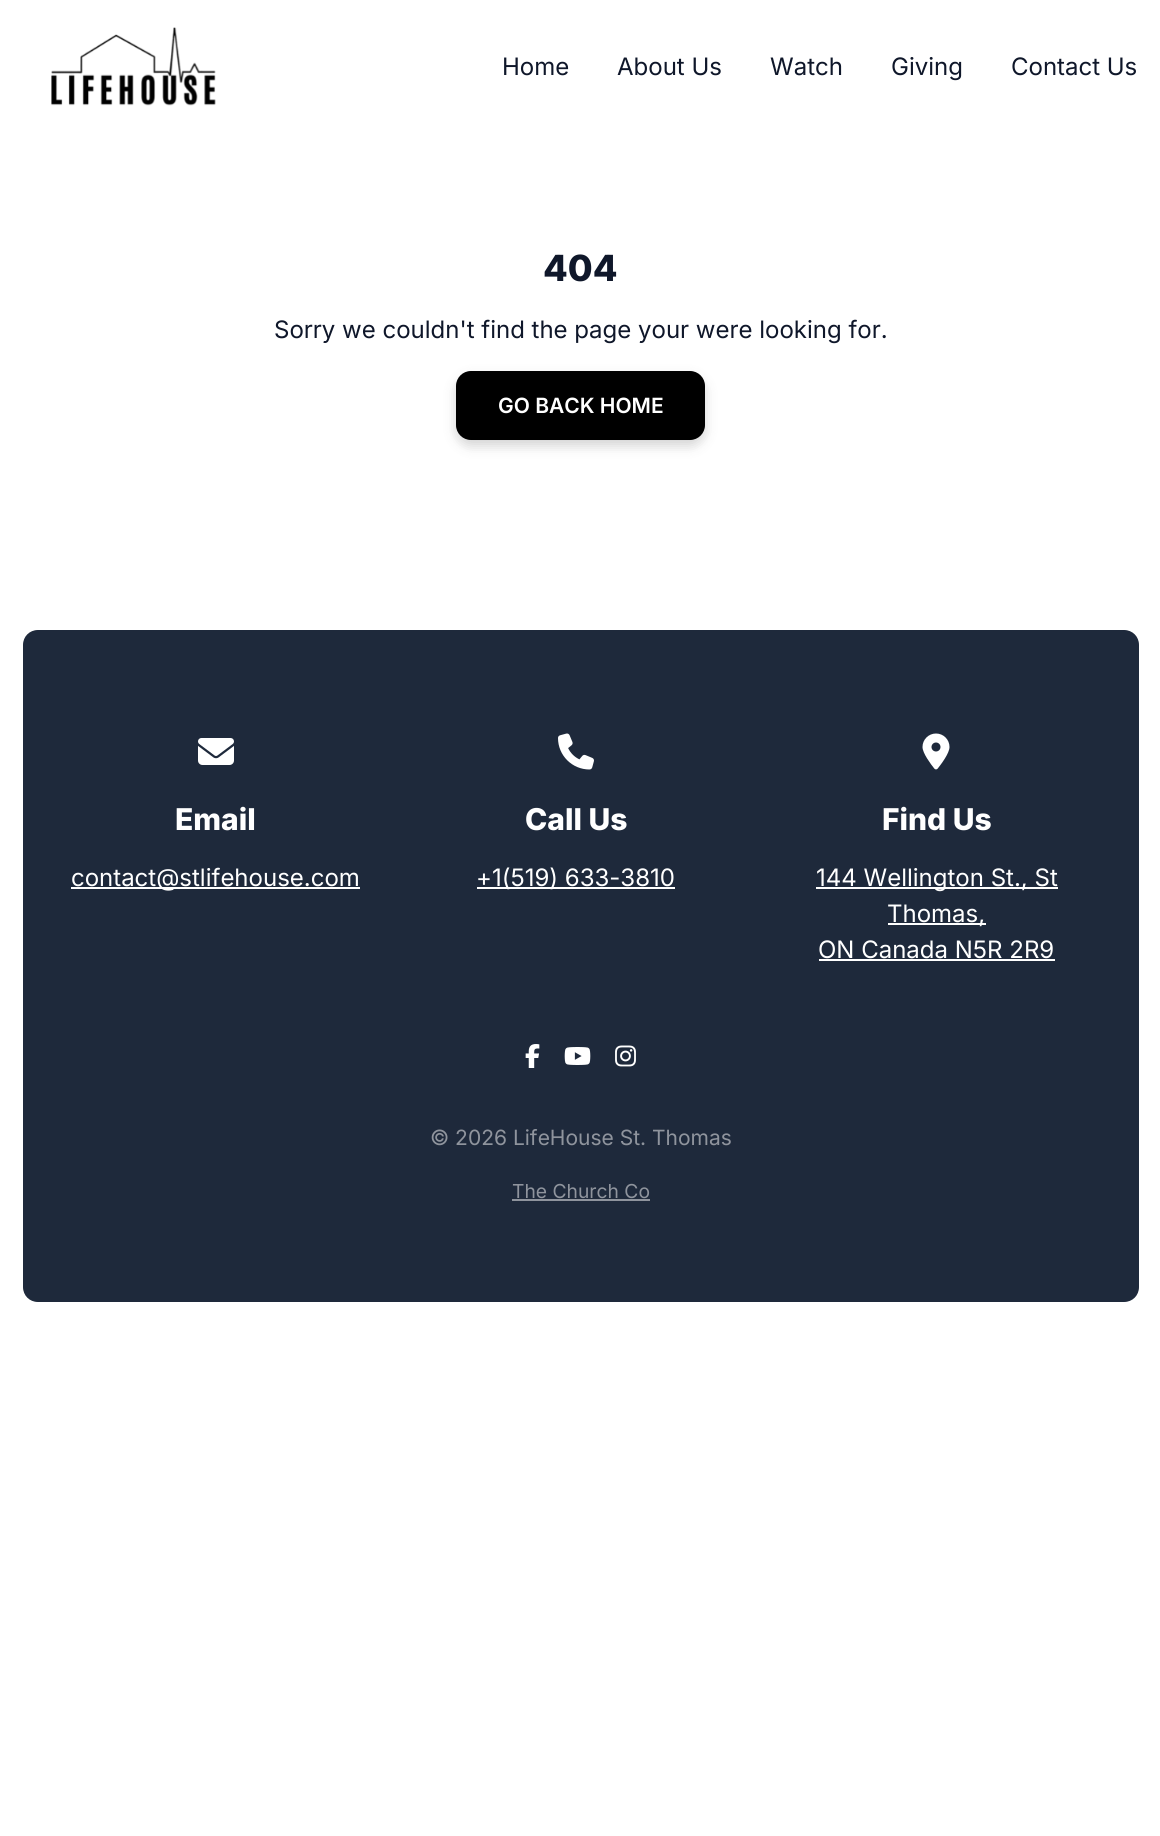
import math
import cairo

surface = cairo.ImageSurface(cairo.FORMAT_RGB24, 1160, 1836)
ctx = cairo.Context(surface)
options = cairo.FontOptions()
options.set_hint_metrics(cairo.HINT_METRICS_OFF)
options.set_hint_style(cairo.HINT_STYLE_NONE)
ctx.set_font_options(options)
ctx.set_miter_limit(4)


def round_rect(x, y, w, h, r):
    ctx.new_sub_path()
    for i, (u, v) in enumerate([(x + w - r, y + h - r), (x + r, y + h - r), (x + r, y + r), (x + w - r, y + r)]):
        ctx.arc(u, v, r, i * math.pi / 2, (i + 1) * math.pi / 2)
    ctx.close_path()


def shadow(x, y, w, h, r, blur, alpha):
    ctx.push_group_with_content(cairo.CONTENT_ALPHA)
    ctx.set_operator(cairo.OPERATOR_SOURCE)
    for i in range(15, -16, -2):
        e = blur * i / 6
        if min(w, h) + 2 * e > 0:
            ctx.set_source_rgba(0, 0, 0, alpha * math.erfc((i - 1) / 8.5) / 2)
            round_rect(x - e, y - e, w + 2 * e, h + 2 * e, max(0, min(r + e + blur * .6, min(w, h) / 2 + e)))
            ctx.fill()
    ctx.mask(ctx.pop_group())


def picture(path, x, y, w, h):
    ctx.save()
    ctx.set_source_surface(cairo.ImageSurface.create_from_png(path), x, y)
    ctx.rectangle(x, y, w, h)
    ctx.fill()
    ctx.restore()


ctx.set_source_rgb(1, 1, 1)
ctx.paint()
picture("img1.png", 51, 27, 165, 79)
ctx.select_font_face("Inter")
ctx.set_font_size(24)
ctx.set_source_rgb(0.059, 0.09, 0.165)
ctx.move_to(502, 75)
ctx.show_text("Home")
ctx.move_to(617, 75)
ctx.show_text("About Us")
ctx.move_to(770, 75)
ctx.show_text("Watch")
ctx.move_to(891, 75)
ctx.show_text("Giving")
ctx.move_to(1011, 75)
ctx.show_text("Contact Us")
ctx.select_font_face("Inter ExtraBold")
ctx.set_font_size(36)
ctx.move_to(543, 281)
ctx.show_text("404")
ctx.select_font_face("Inter")
ctx.set_font_size(24)
ctx.move_to(274, 338)
ctx.show_text("Sorry we couldn't find the page your were looking for.")
ctx.set_source_rgb(0, 0, 0)
shadow(456, 377, 249, 69, 15, 6, 0.17)
ctx.set_source_rgb(0, 0, 0)
round_rect(456, 371, 249, 69, 15)
ctx.fill()
ctx.select_font_face("Inter SemiBold")
ctx.set_font_size(21)
ctx.set_source_rgb(1, 1, 1)
ctx.move_to(498, 413)
ctx.show_text("GO BACK HOME")
ctx.set_source_rgb(0.118, 0.161, 0.231)
ctx.new_path()
ctx.move_to(38, 630)
ctx.line_to(1124, 630)
ctx.curve_to(1132.5, 630, 1139, 636.5, 1139, 645)
ctx.line_to(1139, 990)
ctx.line_to(23, 990)
ctx.line_to(23, 645)
ctx.curve_to(23, 636.5, 29.5, 630, 38, 630)
ctx.close_path()
ctx.fill()
picture("img2.png", 198, 738, 36, 27)
ctx.select_font_face("Inter ExtraBold")
ctx.set_font_size(30)
ctx.set_source_rgb(1, 1, 1)
ctx.move_to(175, 830)
ctx.show_text("Email")
ctx.rectangle(71, 887, 289, 2)
ctx.fill()
ctx.select_font_face("Inter")
ctx.set_font_size(24)
ctx.move_to(71, 886)
ctx.show_text("contact@stlifehouse.com")
picture("img3.png", 558, 733, 36, 37)
ctx.select_font_face("Inter ExtraBold")
ctx.set_font_size(30)
ctx.move_to(525, 830)
ctx.show_text("Call Us")
ctx.rectangle(477, 887, 198, 2)
ctx.fill()
ctx.select_font_face("Inter")
ctx.set_font_size(24)
ctx.move_to(476, 886)
ctx.show_text("+1(519) 633-3810")
picture("img4.png", 922, 733, 28, 37)
ctx.select_font_face("Inter ExtraBold")
ctx.set_font_size(30)
ctx.move_to(882, 830)
ctx.show_text("Find Us")
ctx.rectangle(816, 887, 242, 2)
ctx.fill()
ctx.select_font_face("Inter")
ctx.set_font_size(24)
ctx.move_to(816, 886)
ctx.show_text("144 Wellington St., St")
ctx.rectangle(888, 923, 98, 2)
ctx.fill()
ctx.move_to(887, 922)
ctx.show_text("Thomas,")
ctx.move_to(818, 958)
ctx.show_text("ON Canada N5R 2R9")
ctx.rectangle(819, 959, 236, 2)
ctx.fill()
ctx.set_source_rgb(0.118, 0.161, 0.231)
ctx.new_path()
ctx.move_to(23, 990)
ctx.line_to(1139, 990)
ctx.line_to(1139, 1287)
ctx.curve_to(1139, 1295.5, 1132.5, 1302, 1124, 1302)
ctx.line_to(38, 1302)
ctx.curve_to(29.5, 1302, 23, 1295.5, 23, 1287)
ctx.close_path()
ctx.fill()
picture("img5.png", 525, 1044, 15, 24)
picture("img6.png", 564, 1047, 27, 18)
picture("img7.png", 615, 1045, 21, 22)
ctx.set_font_size(21)
ctx.set_source_rgb(0.561, 0.58, 0.616)
ctx.move_to(430, 1145)
ctx.show_text("© 2026 LifeHouse St. Thomas")
ctx.set_font_size(19.25)
ctx.move_to(512, 1198)
ctx.show_text("The Church Co")
ctx.rectangle(512, 1199, 138, 2)
ctx.fill()
surface.write_to_png("page.png")
